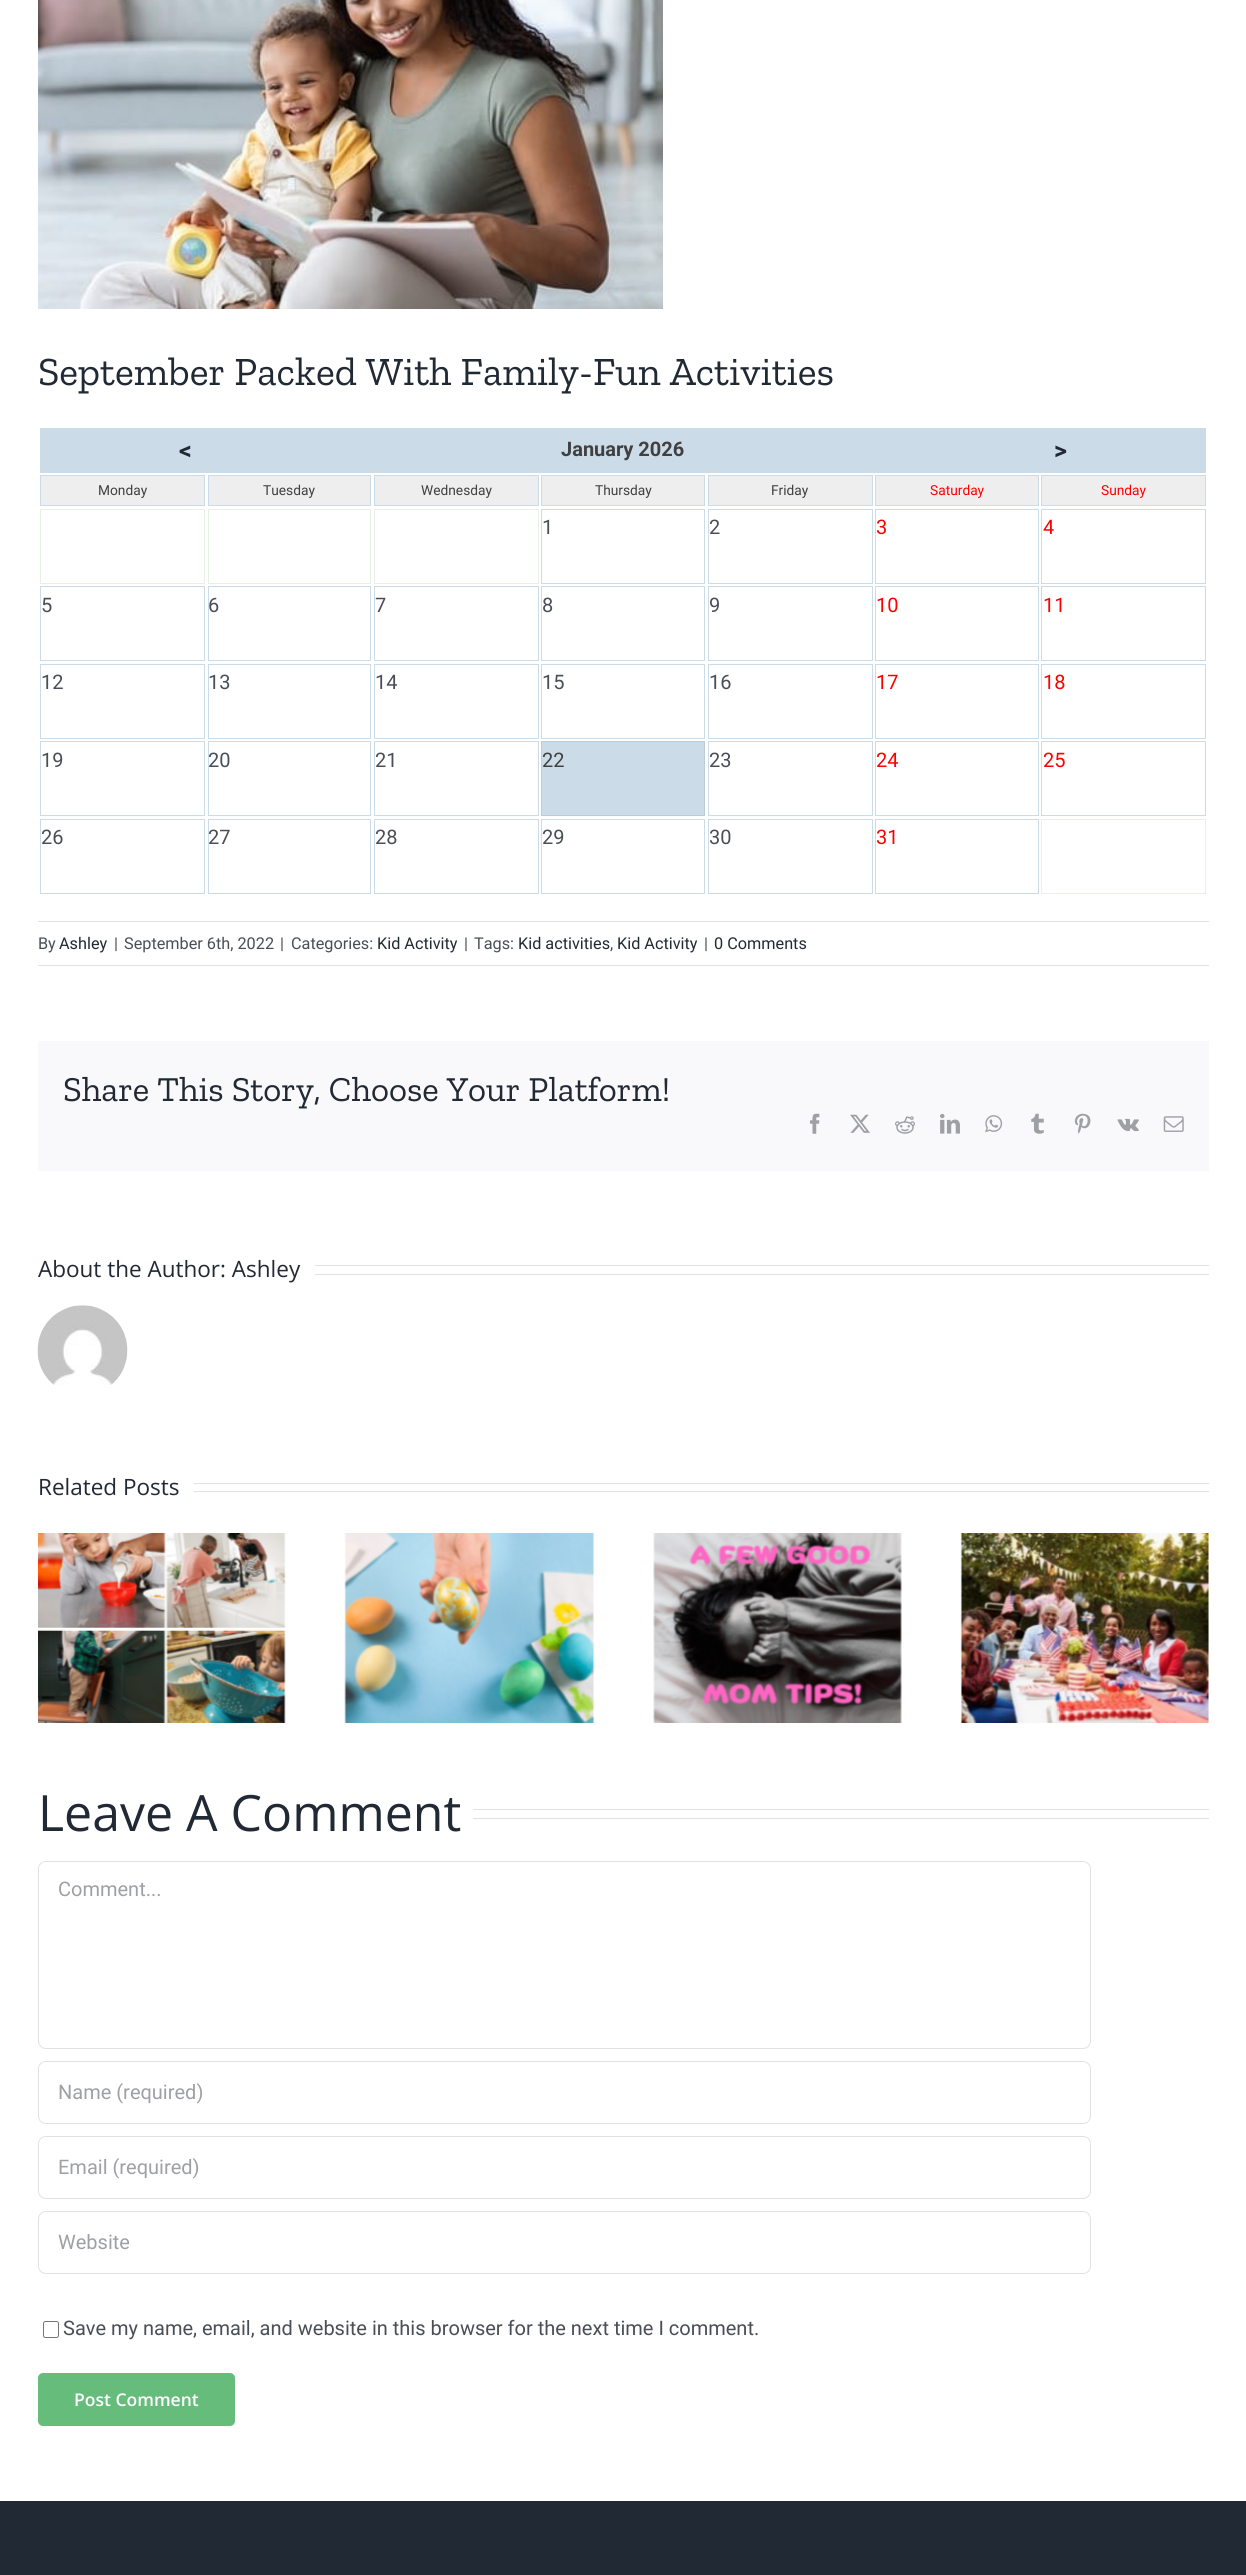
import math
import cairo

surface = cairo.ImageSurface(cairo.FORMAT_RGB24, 1246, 2575)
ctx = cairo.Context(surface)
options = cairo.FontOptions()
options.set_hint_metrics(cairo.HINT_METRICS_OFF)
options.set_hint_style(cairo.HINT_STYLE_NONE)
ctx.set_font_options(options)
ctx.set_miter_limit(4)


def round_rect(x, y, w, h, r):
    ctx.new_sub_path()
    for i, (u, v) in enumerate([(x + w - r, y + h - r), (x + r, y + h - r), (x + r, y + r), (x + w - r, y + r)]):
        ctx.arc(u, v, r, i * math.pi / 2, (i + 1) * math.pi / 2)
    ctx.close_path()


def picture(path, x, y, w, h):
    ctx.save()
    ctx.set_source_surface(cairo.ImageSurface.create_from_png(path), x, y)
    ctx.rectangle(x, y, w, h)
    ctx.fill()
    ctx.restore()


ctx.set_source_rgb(1, 1, 1)
ctx.paint()
picture("img1.png", 38, 0, 625, 309)
ctx.select_font_face("Zilla Slab")
ctx.set_font_size(40)
ctx.set_source_rgb(0.129, 0.161, 0.204)
ctx.move_to(38, 385)
ctx.show_text("September Packed With Family-Fun Activities")
ctx.set_source_rgb(0.8, 0.859, 0.91)
ctx.rectangle(40, 428, 1166, 45)
ctx.fill()
ctx.select_font_face("Roboto", cairo.FONT_SLANT_NORMAL, cairo.FONT_WEIGHT_BOLD)
ctx.set_font_size(25)
ctx.set_source_rgb(0.129, 0.161, 0.204)
ctx.move_to(179, 459)
ctx.show_text("<")
ctx.set_font_size(20)
ctx.set_source_rgb(0.251, 0.251, 0.251)
ctx.move_to(561, 456)
ctx.show_text("January 2026")
ctx.set_font_size(25)
ctx.set_source_rgb(0.129, 0.161, 0.204)
ctx.move_to(1054, 459)
ctx.show_text(">")
ctx.set_source_rgb(0.933, 0.933, 0.933)
ctx.rectangle(40.5, 475.5, 164, 30)
ctx.fill_preserve()
ctx.set_source_rgb(0.8, 0.859, 0.91)
ctx.set_line_width(1)
ctx.stroke()
ctx.select_font_face("Roboto")
ctx.set_font_size(13.75)
ctx.set_source_rgb(0.251, 0.251, 0.251)
ctx.move_to(98, 495)
ctx.show_text("Monday")
ctx.set_source_rgb(0.933, 0.933, 0.933)
ctx.rectangle(208.5, 475.5, 162, 30)
ctx.fill_preserve()
ctx.set_source_rgb(0.8, 0.859, 0.91)
ctx.stroke()
ctx.set_source_rgb(0.251, 0.251, 0.251)
ctx.move_to(263, 495)
ctx.show_text("Tuesday")
ctx.set_source_rgb(0.933, 0.933, 0.933)
ctx.rectangle(374.5, 475.5, 164, 30)
ctx.fill_preserve()
ctx.set_source_rgb(0.8, 0.859, 0.91)
ctx.stroke()
ctx.set_source_rgb(0.251, 0.251, 0.251)
ctx.move_to(421, 495)
ctx.show_text("Wednesday")
ctx.set_source_rgb(0.933, 0.933, 0.933)
ctx.rectangle(541.5, 475.5, 163, 30)
ctx.fill_preserve()
ctx.set_source_rgb(0.8, 0.859, 0.91)
ctx.stroke()
ctx.set_source_rgb(0.251, 0.251, 0.251)
ctx.move_to(595, 495)
ctx.show_text("Thursday")
ctx.set_source_rgb(0.933, 0.933, 0.933)
ctx.rectangle(708.5, 475.5, 164, 30)
ctx.fill_preserve()
ctx.set_source_rgb(0.8, 0.859, 0.91)
ctx.stroke()
ctx.set_source_rgb(0.251, 0.251, 0.251)
ctx.move_to(771, 495)
ctx.show_text("Friday")
ctx.set_source_rgb(0.933, 0.933, 0.933)
ctx.rectangle(875.5, 475.5, 163, 30)
ctx.fill_preserve()
ctx.set_source_rgb(0.8, 0.859, 0.91)
ctx.stroke()
ctx.set_source_rgb(1, 0, 0)
ctx.move_to(930, 495)
ctx.show_text("Saturday")
ctx.set_source_rgb(0.933, 0.933, 0.933)
ctx.rectangle(1041.5, 475.5, 164, 30)
ctx.fill_preserve()
ctx.set_source_rgb(0.8, 0.859, 0.91)
ctx.stroke()
ctx.set_source_rgb(1, 0, 0)
ctx.move_to(1101, 495)
ctx.show_text("Sunday")
ctx.rectangle(40.5, 509.5, 164, 74)
ctx.set_source_rgb(0.914, 0.941, 0.91)
ctx.stroke()
ctx.rectangle(208.5, 509.5, 162, 74)
ctx.stroke()
ctx.rectangle(374.5, 509.5, 164, 74)
ctx.stroke()
ctx.rectangle(541.5, 509.5, 163, 74)
ctx.set_source_rgb(0.8, 0.859, 0.91)
ctx.stroke()
ctx.set_font_size(20)
ctx.set_source_rgb(0.29, 0.306, 0.341)
ctx.move_to(542, 534)
ctx.show_text("1")
ctx.rectangle(708.5, 509.5, 164, 74)
ctx.set_source_rgb(0.8, 0.859, 0.91)
ctx.stroke()
ctx.set_source_rgb(0.29, 0.306, 0.341)
ctx.move_to(709, 534)
ctx.show_text("2")
ctx.rectangle(875.5, 509.5, 163, 74)
ctx.set_source_rgb(0.8, 0.859, 0.91)
ctx.stroke()
ctx.set_source_rgb(1, 0, 0)
ctx.move_to(876, 534)
ctx.show_text("3")
ctx.rectangle(1041.5, 509.5, 164, 74)
ctx.set_source_rgb(0.8, 0.859, 0.91)
ctx.stroke()
ctx.set_source_rgb(1, 0, 0)
ctx.move_to(1043, 534)
ctx.show_text("4")
ctx.rectangle(40.5, 586.5, 164, 74)
ctx.set_source_rgb(0.8, 0.859, 0.91)
ctx.stroke()
ctx.set_source_rgb(0.29, 0.306, 0.341)
ctx.move_to(41, 612)
ctx.show_text("5")
ctx.rectangle(208.5, 586.5, 162, 74)
ctx.set_source_rgb(0.8, 0.859, 0.91)
ctx.stroke()
ctx.set_source_rgb(0.29, 0.306, 0.341)
ctx.move_to(208, 612)
ctx.show_text("6")
ctx.rectangle(374.5, 586.5, 164, 74)
ctx.set_source_rgb(0.8, 0.859, 0.91)
ctx.stroke()
ctx.set_source_rgb(0.29, 0.306, 0.341)
ctx.move_to(375, 612)
ctx.show_text("7")
ctx.rectangle(541.5, 586.5, 163, 74)
ctx.set_source_rgb(0.8, 0.859, 0.91)
ctx.stroke()
ctx.set_source_rgb(0.29, 0.306, 0.341)
ctx.move_to(542, 612)
ctx.show_text("8")
ctx.rectangle(708.5, 586.5, 164, 74)
ctx.set_source_rgb(0.8, 0.859, 0.91)
ctx.stroke()
ctx.set_source_rgb(0.29, 0.306, 0.341)
ctx.move_to(709, 612)
ctx.show_text("9")
ctx.rectangle(875.5, 586.5, 163, 74)
ctx.set_source_rgb(0.8, 0.859, 0.91)
ctx.stroke()
ctx.set_source_rgb(1, 0, 0)
ctx.move_to(876, 612)
ctx.show_text("10")
ctx.rectangle(1041.5, 586.5, 164, 74)
ctx.set_source_rgb(0.8, 0.859, 0.91)
ctx.stroke()
ctx.set_source_rgb(1, 0, 0)
ctx.move_to(1043, 612)
ctx.show_text("11")
ctx.rectangle(40.5, 664.5, 164, 74)
ctx.set_source_rgb(0.8, 0.859, 0.91)
ctx.stroke()
ctx.set_source_rgb(0.29, 0.306, 0.341)
ctx.move_to(41, 689)
ctx.show_text("12")
ctx.rectangle(208.5, 664.5, 162, 74)
ctx.set_source_rgb(0.8, 0.859, 0.91)
ctx.stroke()
ctx.set_source_rgb(0.29, 0.306, 0.341)
ctx.move_to(208, 689)
ctx.show_text("13")
ctx.rectangle(374.5, 664.5, 164, 74)
ctx.set_source_rgb(0.8, 0.859, 0.91)
ctx.stroke()
ctx.set_source_rgb(0.29, 0.306, 0.341)
ctx.move_to(375, 689)
ctx.show_text("14")
ctx.rectangle(541.5, 664.5, 163, 74)
ctx.set_source_rgb(0.8, 0.859, 0.91)
ctx.stroke()
ctx.set_source_rgb(0.29, 0.306, 0.341)
ctx.move_to(542, 689)
ctx.show_text("15")
ctx.rectangle(708.5, 664.5, 164, 74)
ctx.set_source_rgb(0.8, 0.859, 0.91)
ctx.stroke()
ctx.set_source_rgb(0.29, 0.306, 0.341)
ctx.move_to(709, 689)
ctx.show_text("16")
ctx.rectangle(875.5, 664.5, 163, 74)
ctx.set_source_rgb(0.8, 0.859, 0.91)
ctx.stroke()
ctx.set_source_rgb(1, 0, 0)
ctx.move_to(876, 689)
ctx.show_text("17")
ctx.rectangle(1041.5, 664.5, 164, 74)
ctx.set_source_rgb(0.8, 0.859, 0.91)
ctx.stroke()
ctx.set_source_rgb(1, 0, 0)
ctx.move_to(1043, 689)
ctx.show_text("18")
ctx.rectangle(40.5, 741.5, 164, 74)
ctx.set_source_rgb(0.8, 0.859, 0.91)
ctx.stroke()
ctx.set_source_rgb(0.29, 0.306, 0.341)
ctx.move_to(41, 767)
ctx.show_text("19")
ctx.rectangle(208.5, 741.5, 162, 74)
ctx.set_source_rgb(0.8, 0.859, 0.91)
ctx.stroke()
ctx.set_source_rgb(0.29, 0.306, 0.341)
ctx.move_to(208, 767)
ctx.show_text("20")
ctx.rectangle(374.5, 741.5, 164, 74)
ctx.set_source_rgb(0.8, 0.859, 0.91)
ctx.stroke()
ctx.set_source_rgb(0.29, 0.306, 0.341)
ctx.move_to(375, 767)
ctx.show_text("21")
ctx.set_source_rgb(0.8, 0.859, 0.91)
ctx.rectangle(541.5, 741.5, 163, 74)
ctx.fill_preserve()
ctx.set_source_rgb(0.737, 0.796, 0.847)
ctx.stroke()
ctx.set_source_rgb(0.251, 0.251, 0.251)
ctx.move_to(542, 767)
ctx.show_text("22")
ctx.rectangle(708.5, 741.5, 164, 74)
ctx.set_source_rgb(0.8, 0.859, 0.91)
ctx.stroke()
ctx.set_source_rgb(0.29, 0.306, 0.341)
ctx.move_to(709, 767)
ctx.show_text("23")
ctx.rectangle(875.5, 741.5, 163, 74)
ctx.set_source_rgb(0.8, 0.859, 0.91)
ctx.stroke()
ctx.set_source_rgb(1, 0, 0)
ctx.move_to(876, 767)
ctx.show_text("24")
ctx.rectangle(1041.5, 741.5, 164, 74)
ctx.set_source_rgb(0.8, 0.859, 0.91)
ctx.stroke()
ctx.set_source_rgb(1, 0, 0)
ctx.move_to(1043, 767)
ctx.show_text("25")
ctx.rectangle(40.5, 819.5, 164, 74)
ctx.set_source_rgb(0.8, 0.859, 0.91)
ctx.stroke()
ctx.set_source_rgb(0.29, 0.306, 0.341)
ctx.move_to(41, 844)
ctx.show_text("26")
ctx.rectangle(208.5, 819.5, 162, 74)
ctx.set_source_rgb(0.8, 0.859, 0.91)
ctx.stroke()
ctx.set_source_rgb(0.29, 0.306, 0.341)
ctx.move_to(208, 844)
ctx.show_text("27")
ctx.rectangle(374.5, 819.5, 164, 74)
ctx.set_source_rgb(0.8, 0.859, 0.91)
ctx.stroke()
ctx.set_source_rgb(0.29, 0.306, 0.341)
ctx.move_to(375, 844)
ctx.show_text("28")
ctx.rectangle(541.5, 819.5, 163, 74)
ctx.set_source_rgb(0.8, 0.859, 0.91)
ctx.stroke()
ctx.set_source_rgb(0.29, 0.306, 0.341)
ctx.move_to(542, 844)
ctx.show_text("29")
ctx.rectangle(708.5, 819.5, 164, 74)
ctx.set_source_rgb(0.8, 0.859, 0.91)
ctx.stroke()
ctx.set_source_rgb(0.29, 0.306, 0.341)
ctx.move_to(709, 844)
ctx.show_text("30")
ctx.rectangle(875.5, 819.5, 163, 74)
ctx.set_source_rgb(0.8, 0.859, 0.91)
ctx.stroke()
ctx.set_source_rgb(1, 0, 0)
ctx.move_to(876, 844)
ctx.show_text("31")
ctx.rectangle(1041.5, 819.5, 164, 74)
ctx.set_source_rgb(0.914, 0.941, 0.91)
ctx.stroke()
ctx.set_source_rgb(0.886, 0.886, 0.886)
ctx.rectangle(38, 921, 1171, 1)
ctx.fill()
ctx.rectangle(38, 965, 1171, 1)
ctx.fill()
ctx.set_font_size(16.25)
ctx.set_source_rgb(0.29, 0.306, 0.341)
ctx.move_to(38, 949)
ctx.show_text("By")
ctx.set_source_rgb(0.129, 0.161, 0.204)
ctx.move_to(59, 949)
ctx.show_text("Ashley")
ctx.set_source_rgb(0.29, 0.306, 0.341)
ctx.move_to(114, 949)
ctx.show_text("|")
ctx.move_to(124, 949)
ctx.show_text("September 6th, 2022")
ctx.move_to(280, 949)
ctx.show_text("|")
ctx.move_to(291, 949)
ctx.show_text("Categories:")
ctx.set_source_rgb(0.129, 0.161, 0.204)
ctx.move_to(377, 949)
ctx.show_text("Kid Activity")
ctx.set_source_rgb(0.29, 0.306, 0.341)
ctx.move_to(464, 949)
ctx.show_text("|")
ctx.move_to(474, 949)
ctx.show_text("Tags:")
ctx.set_source_rgb(0.129, 0.161, 0.204)
ctx.move_to(518, 949)
ctx.show_text("Kid activities")
ctx.set_source_rgb(0.29, 0.306, 0.341)
ctx.move_to(610, 949)
ctx.show_text(",")
ctx.set_source_rgb(0.129, 0.161, 0.204)
ctx.move_to(617, 949)
ctx.show_text("Kid Activity")
ctx.set_source_rgb(0.29, 0.306, 0.341)
ctx.move_to(704, 949)
ctx.show_text("|")
ctx.set_source_rgb(0.129, 0.161, 0.204)
ctx.move_to(714, 949)
ctx.show_text("0 Comments")
ctx.set_source_rgb(0.976, 0.976, 0.984)
ctx.rectangle(38, 1041, 1171, 130)
ctx.fill()
ctx.select_font_face("Zilla Slab")
ctx.set_font_size(35)
ctx.set_source_rgb(0.129, 0.161, 0.204)
ctx.move_to(63, 1101)
ctx.show_text("Share This Story, Choose Your Platform!")
picture("img2.png", 810, 1113, 10, 21)
picture("img3.png", 850, 1114, 20, 19)
picture("img4.png", 895, 1116, 20, 18)
picture("img5.png", 940, 1113, 20, 21)
picture("img6.png", 985, 1115, 18, 18)
picture("img7.png", 1031, 1113, 13, 21)
picture("img8.png", 1074, 1113, 17, 21)
picture("img9.png", 1117, 1118, 22, 14)
picture("img10.png", 1163, 1116, 21, 16)
ctx.select_font_face("Open Sans")
ctx.set_font_size(22.5)
ctx.move_to(38, 1277)
ctx.show_text("About the Author: Ashley")
ctx.set_source_rgb(0.886, 0.886, 0.886)
ctx.rectangle(315, 1265, 894, 1)
ctx.fill()
ctx.rectangle(315, 1274, 894, 1)
ctx.fill()
picture("img11.png", 37, 1305, 91, 80)
ctx.set_source_rgb(0.129, 0.161, 0.204)
ctx.move_to(38, 1495)
ctx.show_text("Related Posts")
ctx.set_source_rgb(0.886, 0.886, 0.886)
ctx.rectangle(194, 1483, 1015, 1)
ctx.fill()
ctx.rectangle(194, 1491, 1015, 1)
ctx.fill()
picture("img12.png", 38, 1533, 248, 190)
picture("img13.png", 344, 1533, 251, 190)
picture("img14.png", 653, 1533, 249, 190)
picture("img15.png", 960, 1533, 249, 190)
ctx.set_font_size(50)
ctx.set_source_rgb(0.129, 0.161, 0.204)
ctx.move_to(38, 1831)
ctx.show_text("Leave A Comment")
ctx.set_source_rgb(0.886, 0.886, 0.886)
ctx.rectangle(473, 1809, 736, 1)
ctx.fill()
ctx.rectangle(473, 1818, 736, 1)
ctx.fill()
round_rect(38.5, 1861.5, 1052, 187, 7.5)
ctx.stroke()
ctx.select_font_face("Roboto")
ctx.set_font_size(20)
ctx.set_source_rgb(0.62, 0.627, 0.643)
ctx.move_to(58, 1896)
ctx.show_text("Comment...")
round_rect(38.5, 2061.5, 1052, 62, 7.5)
ctx.set_source_rgb(0.886, 0.886, 0.886)
ctx.stroke()
ctx.set_source_rgb(0.62, 0.627, 0.643)
ctx.move_to(58, 2099)
ctx.show_text("Name (required)")
round_rect(38.5, 2136.5, 1052, 62, 7.5)
ctx.set_source_rgb(0.886, 0.886, 0.886)
ctx.stroke()
ctx.set_source_rgb(0.62, 0.627, 0.643)
ctx.move_to(58, 2174)
ctx.show_text("Email (required)")
round_rect(38.5, 2211.5, 1052, 62, 7.5)
ctx.set_source_rgb(0.886, 0.886, 0.886)
ctx.stroke()
ctx.set_source_rgb(0.62, 0.627, 0.643)
ctx.move_to(58, 2249)
ctx.show_text("Website")
round_rect(43.5, 2321.5, 15, 16, 2)
ctx.set_source_rgb(0.463, 0.463, 0.463)
ctx.stroke()
ctx.set_source_rgb(0.29, 0.306, 0.341)
ctx.move_to(63, 2335)
ctx.show_text("Save my name, email, and website in this browser for the next time I comment.")
ctx.set_source_rgb(0.396, 0.737, 0.482)
round_rect(38, 2373, 197, 53, 5)
ctx.fill()
ctx.select_font_face("Open Sans SemiBold")
ctx.set_font_size(17.5)
ctx.set_source_rgb(1, 1, 1)
ctx.move_to(74, 2406)
ctx.show_text("Post Comment")
ctx.set_source_rgb(0.129, 0.161, 0.204)
ctx.rectangle(0, 2501, 1246, 74)
ctx.fill()
surface.write_to_png("page.png")
